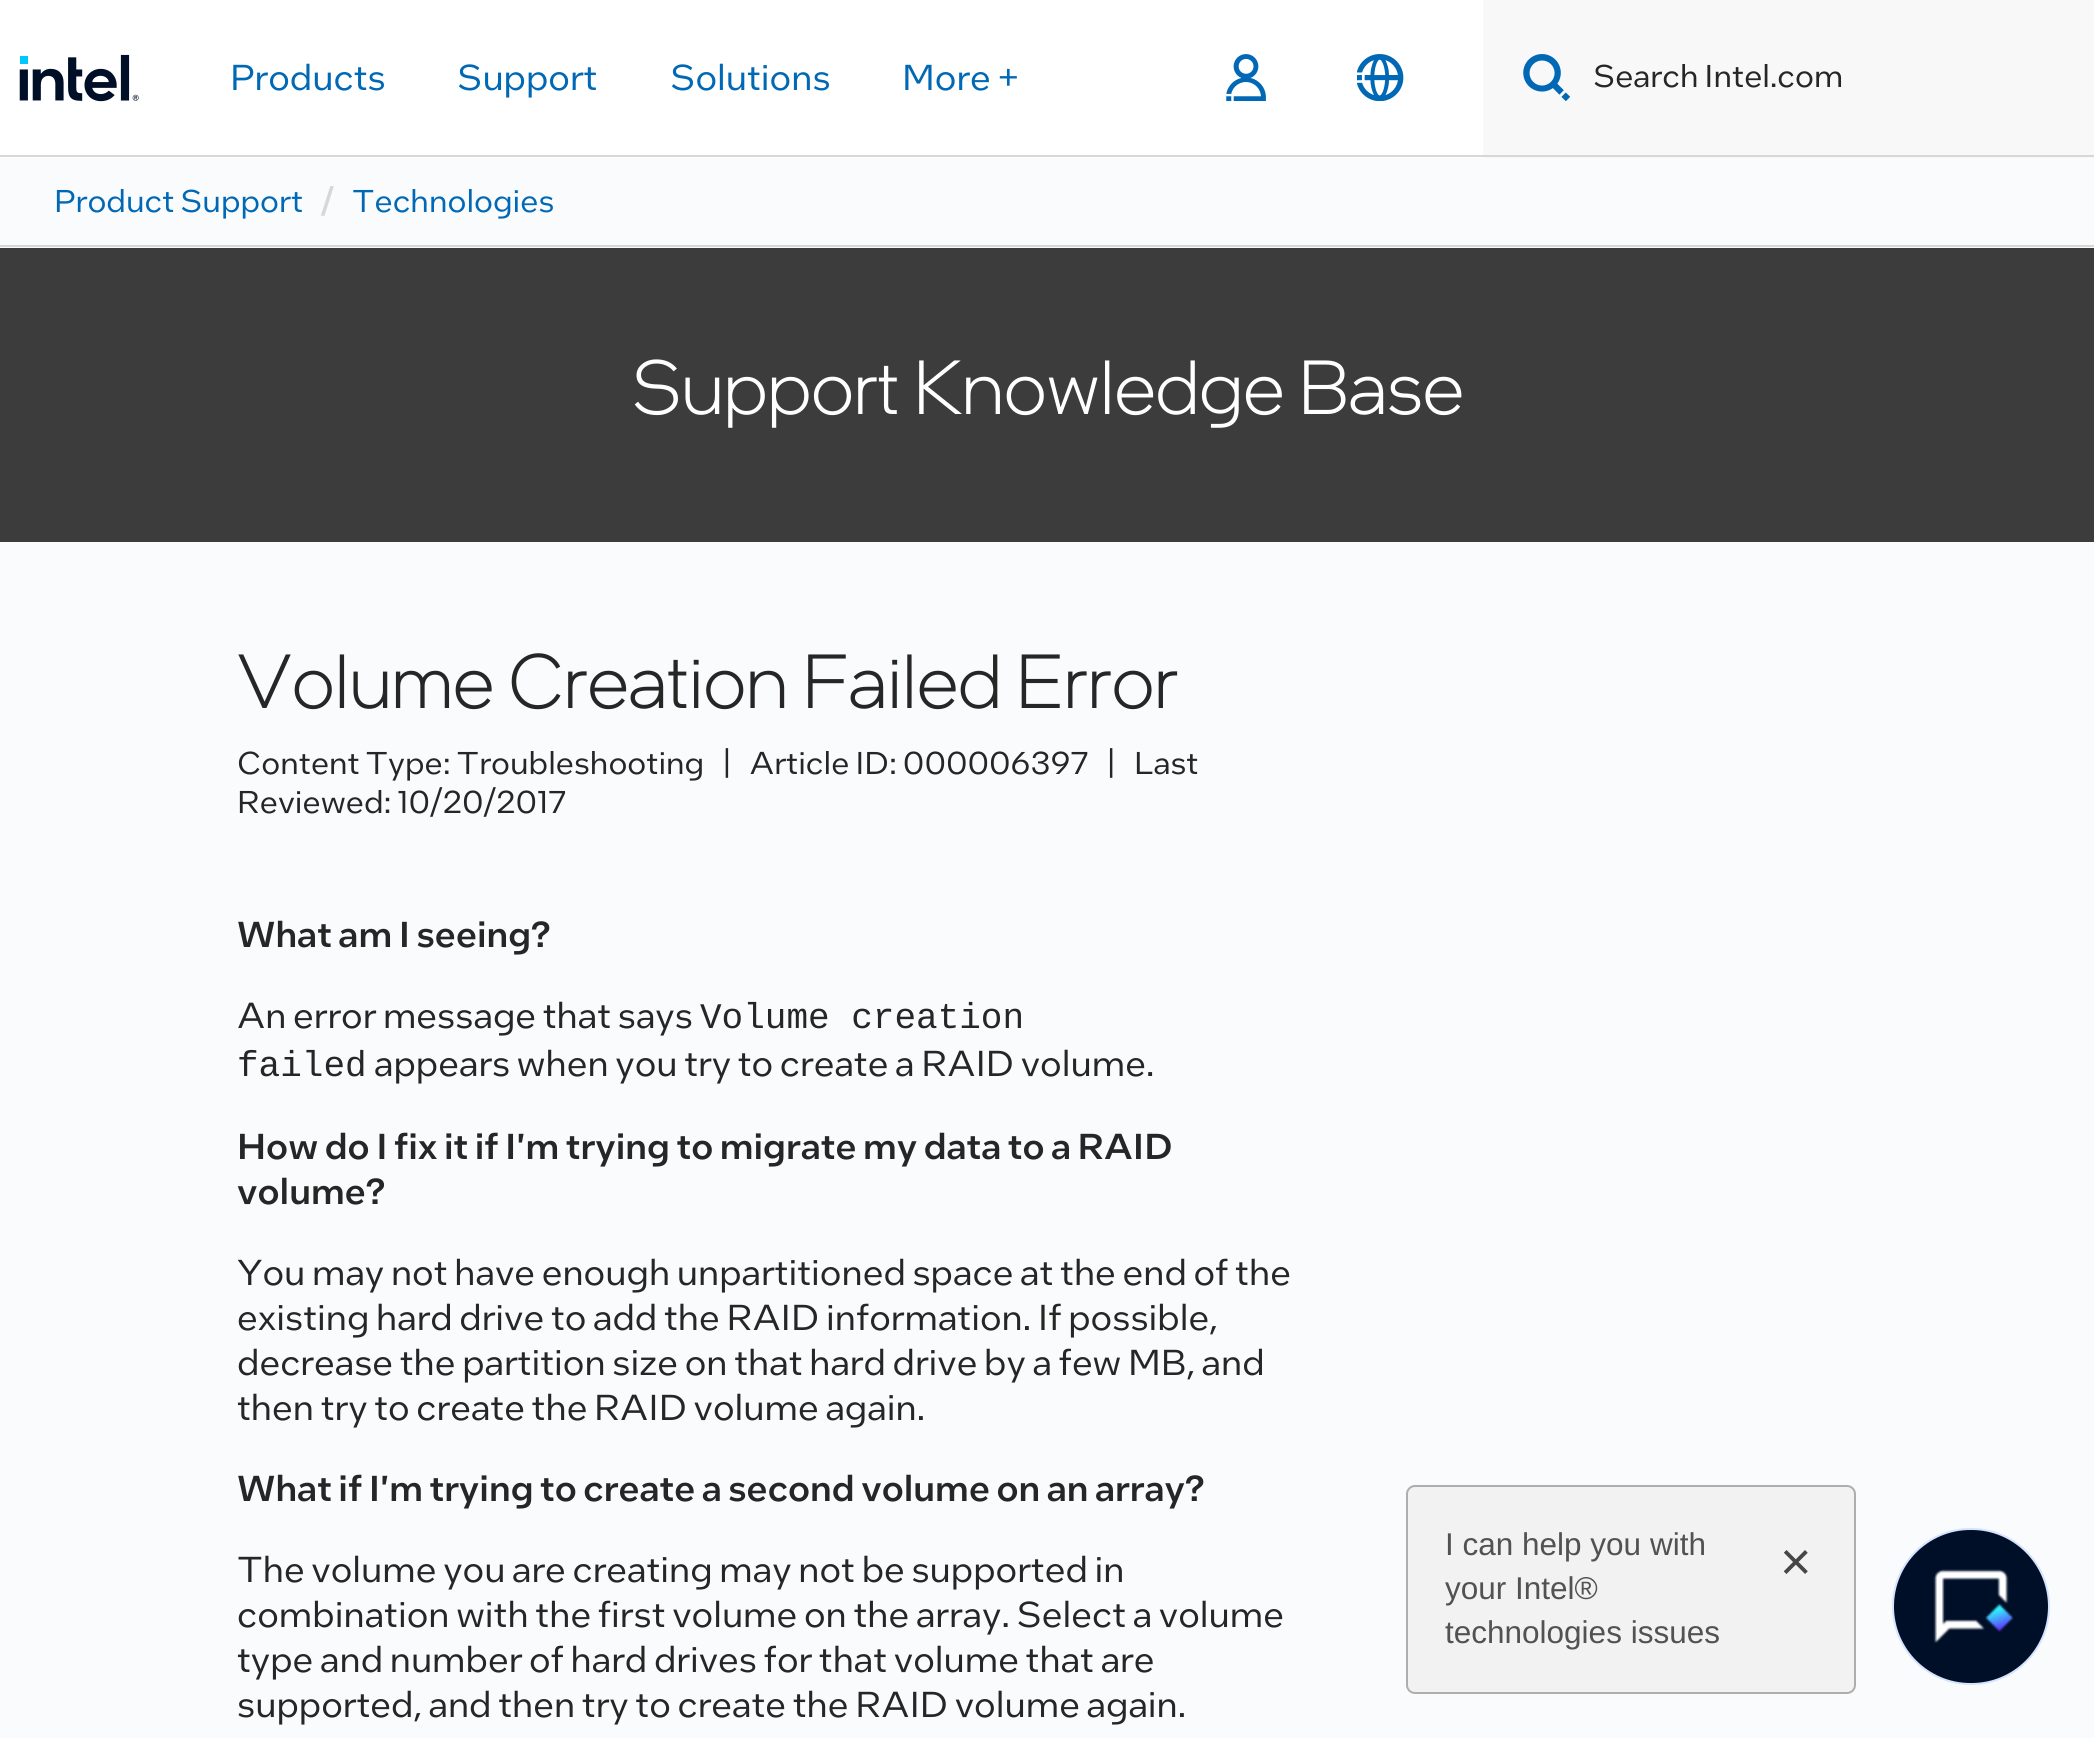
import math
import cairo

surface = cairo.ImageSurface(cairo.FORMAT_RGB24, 2094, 1738)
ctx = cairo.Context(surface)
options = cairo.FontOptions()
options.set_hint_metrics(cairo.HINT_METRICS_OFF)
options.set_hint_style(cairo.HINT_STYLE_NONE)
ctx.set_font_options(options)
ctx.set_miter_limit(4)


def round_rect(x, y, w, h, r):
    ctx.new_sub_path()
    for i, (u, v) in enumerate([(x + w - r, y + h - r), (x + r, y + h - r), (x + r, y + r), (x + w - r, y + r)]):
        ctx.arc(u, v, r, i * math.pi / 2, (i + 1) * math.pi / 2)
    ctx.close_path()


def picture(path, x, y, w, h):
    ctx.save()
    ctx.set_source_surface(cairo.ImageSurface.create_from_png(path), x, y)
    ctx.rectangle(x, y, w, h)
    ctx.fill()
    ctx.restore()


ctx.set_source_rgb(0.98, 0.984, 0.988)
ctx.paint()
ctx.set_source_rgb(1, 1, 1)
ctx.rectangle(0, 0, 1483, 158)
ctx.fill()
picture("img1.png", 19, 54, 120, 48)
ctx.select_font_face("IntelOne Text")
ctx.set_font_size(36)
ctx.set_source_rgb(0, 0.408, 0.71)
ctx.move_to(230, 90)
ctx.show_text("Products")
ctx.move_to(457, 90)
ctx.show_text("Support")
ctx.move_to(670, 90)
ctx.show_text("Solutions")
ctx.move_to(902, 90)
ctx.show_text("More +")
picture("img2.png", 1226, 54, 40, 47)
picture("img3.png", 1357, 54, 47, 47)
ctx.set_source_rgb(0.969, 0.969, 0.969)
ctx.rectangle(1483, 0, 611, 158)
ctx.fill()
picture("img4.png", 1523, 54, 48, 47)
ctx.set_font_size(31.5)
ctx.set_source_rgb(0.149, 0.149, 0.149)
ctx.move_to(1593, 87)
ctx.show_text("Search Intel.com")
ctx.set_source_rgb(0.843, 0.843, 0.843)
ctx.rectangle(0, 155, 2094, 2)
ctx.fill()
ctx.rectangle(0, 245, 2094, 2)
ctx.fill()
ctx.set_source_rgb(0, 0.408, 0.71)
ctx.move_to(54, 212)
ctx.show_text("Product Support")
ctx.select_font_face("IntelOne Text Medium")
ctx.set_source_rgb(0.843, 0.843, 0.843)
ctx.move_to(321, 212)
ctx.show_text("/")
ctx.select_font_face("IntelOne Text")
ctx.set_source_rgb(0, 0.408, 0.71)
ctx.move_to(352, 212)
ctx.show_text("Technologies")
ctx.set_source_rgb(0.235, 0.235, 0.235)
ctx.rectangle(0, 248, 2094, 294)
ctx.fill()
ctx.select_font_face("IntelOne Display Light")
ctx.set_font_size(76.5)
ctx.set_source_rgb(1, 1, 1)
ctx.move_to(632, 414)
ctx.show_text("Support Knowledge Base")
ctx.set_source_rgb(0.149, 0.149, 0.149)
ctx.move_to(237, 708)
ctx.show_text("Volume Creation Failed Error")
ctx.select_font_face("IntelOne Text")
ctx.set_font_size(31.5)
ctx.move_to(237, 774)
ctx.show_text("Content Type: Troubleshooting   |   Article ID: 000006397   |   Last")
ctx.move_to(237, 813)
ctx.show_text("Reviewed: 10/20/2017")
ctx.select_font_face("IntelOne Text Medium")
ctx.set_font_size(36)
ctx.move_to(237, 947)
ctx.show_text("What am I seeing?")
ctx.select_font_face("IntelOne Text")
ctx.move_to(237, 1028)
ctx.show_text("An error message that says")
ctx.select_font_face("Liberation Mono")
ctx.move_to(700, 1028)
ctx.show_text("Volume creation")
ctx.move_to(237, 1076)
ctx.show_text("failed")
ctx.select_font_face("IntelOne Text")
ctx.move_to(374, 1076)
ctx.show_text("appears when you try to create a RAID volume.")
ctx.select_font_face("IntelOne Text Medium")
ctx.move_to(237, 1159)
ctx.show_text("How do I fix it if I'm trying to migrate my data to a RAID")
ctx.move_to(237, 1204)
ctx.show_text("volume?")
ctx.select_font_face("IntelOne Text")
ctx.move_to(237, 1285)
ctx.show_text("You may not have enough unpartitioned space at the end of the")
ctx.move_to(237, 1330)
ctx.show_text("existing hard drive to add the RAID information. If possible,")
ctx.move_to(237, 1375)
ctx.show_text("decrease the partition size on that hard drive by a few MB, and")
ctx.move_to(237, 1420)
ctx.show_text("then try to create the RAID volume again.")
ctx.select_font_face("IntelOne Text Medium")
ctx.move_to(237, 1501)
ctx.show_text("What if I'm trying to create a second volume on an array?")
ctx.select_font_face("IntelOne Text")
ctx.move_to(237, 1582)
ctx.show_text("The volume you are creating may not be supported in")
ctx.move_to(237, 1627)
ctx.show_text("combination with the first volume on the array. Select a volume")
ctx.move_to(237, 1672)
ctx.show_text("type and number of hard drives for that volume that are")
ctx.move_to(237, 1717)
ctx.show_text("supported, and then try to create the RAID volume again.")
ctx.set_source_rgb(0.949, 0.949, 0.949)
round_rect(1407, 1486, 448, 207, 8)
ctx.fill_preserve()
ctx.set_source_rgb(0.682, 0.682, 0.682)
ctx.stroke()
ctx.select_font_face("Liberation Sans")
ctx.set_font_size(31.5)
ctx.set_source_rgb(0.322, 0.322, 0.322)
ctx.move_to(1445, 1555)
ctx.show_text("I can help you with")
ctx.move_to(1445, 1599)
ctx.show_text("your Intel®")
ctx.move_to(1445, 1643)
ctx.show_text("technologies issues")
ctx.set_font_size(54)
ctx.set_source_rgb(0.275, 0.275, 0.275)
ctx.move_to(1780, 1580)
ctx.show_text("×")
ctx.set_source_rgb(0, 0.059, 0.157)
round_rect(1893, 1529, 156, 155, 77.5)
ctx.fill_preserve()
ctx.set_source_rgb(0.835, 0.89, 1)
ctx.stroke()
picture("img5.png", 1933, 1569, 81, 74)
surface.write_to_png("page.png")
